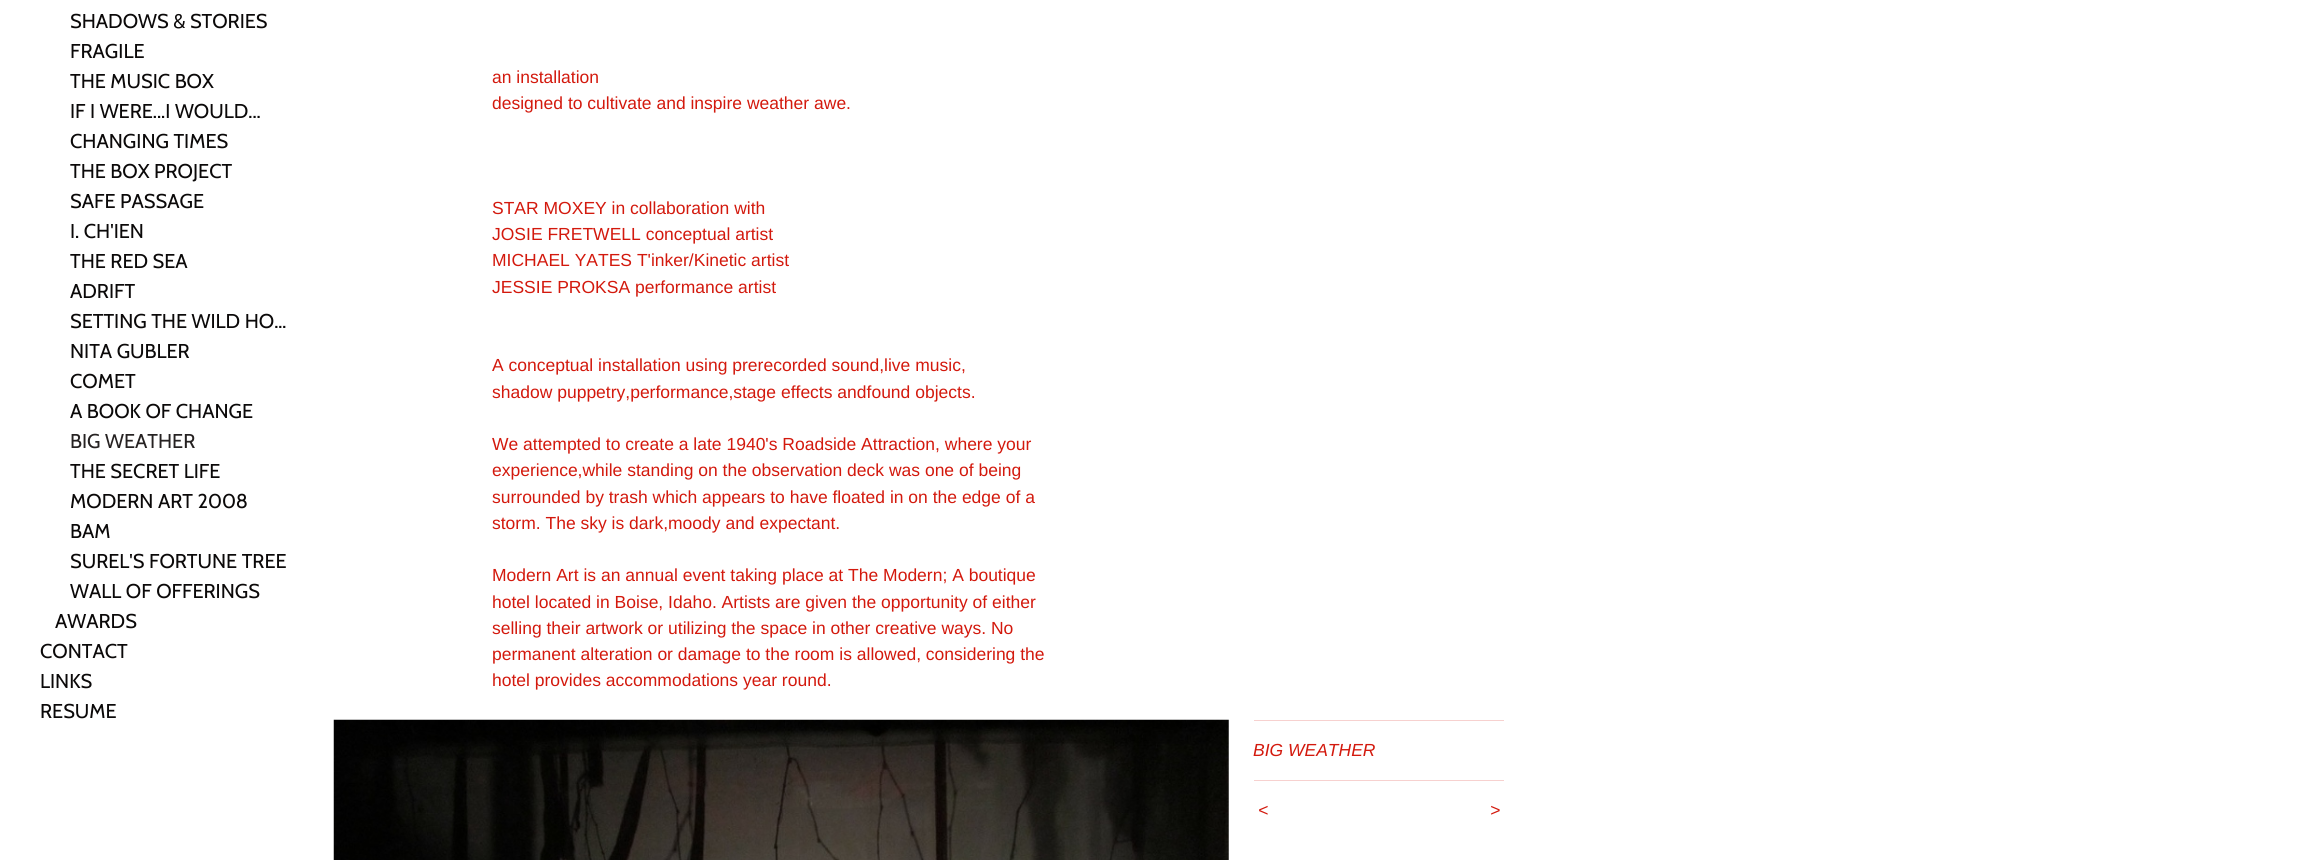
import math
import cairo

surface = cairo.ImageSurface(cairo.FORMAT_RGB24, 2300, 860)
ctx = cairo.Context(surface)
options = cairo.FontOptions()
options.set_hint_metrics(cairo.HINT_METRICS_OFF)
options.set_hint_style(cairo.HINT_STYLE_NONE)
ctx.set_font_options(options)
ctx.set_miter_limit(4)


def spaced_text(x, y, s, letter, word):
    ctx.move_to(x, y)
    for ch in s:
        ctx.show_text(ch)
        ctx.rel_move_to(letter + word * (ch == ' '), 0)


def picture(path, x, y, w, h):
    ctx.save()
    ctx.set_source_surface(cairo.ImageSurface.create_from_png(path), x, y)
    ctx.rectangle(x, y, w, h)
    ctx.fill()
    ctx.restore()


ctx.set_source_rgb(1, 1, 1)
ctx.paint()
ctx.select_font_face("Cabin")
ctx.set_font_size(20)
ctx.set_source_rgb(0.043, 0.039, 0.039)
ctx.move_to(70, 28)
ctx.show_text("SHADOWS & STORIES")
ctx.move_to(70, 58)
ctx.show_text("FRAGILE")
ctx.move_to(70, 88)
ctx.show_text("THE MUSIC BOX")
ctx.move_to(70, 118)
ctx.show_text("IF I WERE...I WOULD...")
ctx.move_to(70, 148)
ctx.show_text("CHANGING TIMES")
ctx.move_to(70, 178)
ctx.show_text("THE BOX PROJECT")
ctx.move_to(70, 208)
ctx.show_text("SAFE PASSAGE")
ctx.move_to(70, 238)
ctx.show_text("I. CH'IEN")
ctx.move_to(70, 268)
ctx.show_text("THE RED SEA")
ctx.move_to(70, 298)
ctx.show_text("ADRIFT")
ctx.move_to(70, 328)
ctx.show_text("SETTING THE WILD HO…")
ctx.move_to(70, 358)
ctx.show_text("NITA GUBLER")
ctx.move_to(70, 388)
ctx.show_text("COMET")
ctx.move_to(70, 418)
ctx.show_text("A BOOK OF CHANGE")
ctx.set_source_rgb(0.149, 0.133, 0.133)
ctx.move_to(70, 448)
ctx.show_text("BIG WEATHER")
ctx.set_source_rgb(0.043, 0.039, 0.039)
ctx.move_to(70, 478)
ctx.show_text("THE SECRET LIFE")
ctx.move_to(70, 508)
ctx.show_text("MODERN ART 2008")
ctx.move_to(70, 538)
ctx.show_text("BAM")
ctx.move_to(70, 568)
ctx.show_text("SUREL'S FORTUNE TREE")
ctx.move_to(70, 598)
ctx.show_text("WALL OF OFFERINGS")
ctx.move_to(55, 628)
ctx.show_text("AWARDS")
ctx.move_to(40, 658)
ctx.show_text("CONTACT")
ctx.move_to(40, 688)
ctx.show_text("LINKS")
ctx.move_to(40, 718)
ctx.show_text("RESUME")
ctx.select_font_face("Liberation Sans")
ctx.set_font_size(17.5)
ctx.set_source_rgb(0.827, 0.098, 0.051)
ctx.move_to(492, 83)
ctx.show_text("an installation")
ctx.move_to(492, 109)
ctx.show_text("designed to cultivate and inspire weather awe.")
ctx.move_to(492, 214)
ctx.show_text("STAR MOXEY in collaboration with")
ctx.move_to(492, 240)
ctx.show_text("JOSIE FRETWELL conceptual artist")
ctx.move_to(492, 266)
ctx.show_text("MICHAEL YATES T'inker/Kinetic artist")
ctx.move_to(492, 293)
ctx.show_text("JESSIE PROKSA performance artist")
ctx.move_to(492, 371)
ctx.show_text("A conceptual installation using prerecorded sound,live music,")
ctx.move_to(492, 398)
ctx.show_text("shadow puppetry,performance,stage effects andfound objects.")
ctx.move_to(492, 450)
ctx.show_text("We attempted to create a late 1940's Roadside Attraction, where your")
ctx.move_to(492, 476)
ctx.show_text("experience,while standing on the observation deck was one of being")
ctx.move_to(492, 503)
ctx.show_text("surrounded by trash which appears to have floated in on the edge of a")
ctx.move_to(492, 529)
ctx.show_text("storm. The sky is dark,moody and expectant.")
ctx.move_to(492, 581)
ctx.show_text("Modern Art is an annual event taking place at The Modern; A boutique")
ctx.move_to(492, 608)
ctx.show_text("hotel located in Boise, Idaho. Artists are given the opportunity of either")
ctx.move_to(492, 634)
ctx.show_text("selling their artwork or utilizing the space in other creative ways. No")
ctx.move_to(492, 660)
ctx.show_text("permanent alteration or damage to the room is allowed, considering the")
ctx.move_to(492, 686)
ctx.show_text("hotel provides accommodations year round.")
picture("img1.png", 333, 719, 896, 141)
ctx.set_source_rgb(0.965, 0.82, 0.812)
ctx.rectangle(1254, 720, 250, 1)
ctx.fill()
ctx.select_font_face("Liberation Sans", cairo.FONT_SLANT_ITALIC)
ctx.set_source_rgb(0.827, 0.098, 0.051)
ctx.move_to(1253, 756)
ctx.show_text("BIG WEATHER")
ctx.set_source_rgb(0.965, 0.82, 0.812)
ctx.rectangle(1254, 780, 250, 1)
ctx.fill()
ctx.set_source_rgb(0.827, 0.098, 0.051)
spaced_text(1258, 816, "<", 1, 0)
spaced_text(1490, 816, ">", 1, 0)
surface.write_to_png("page.png")
